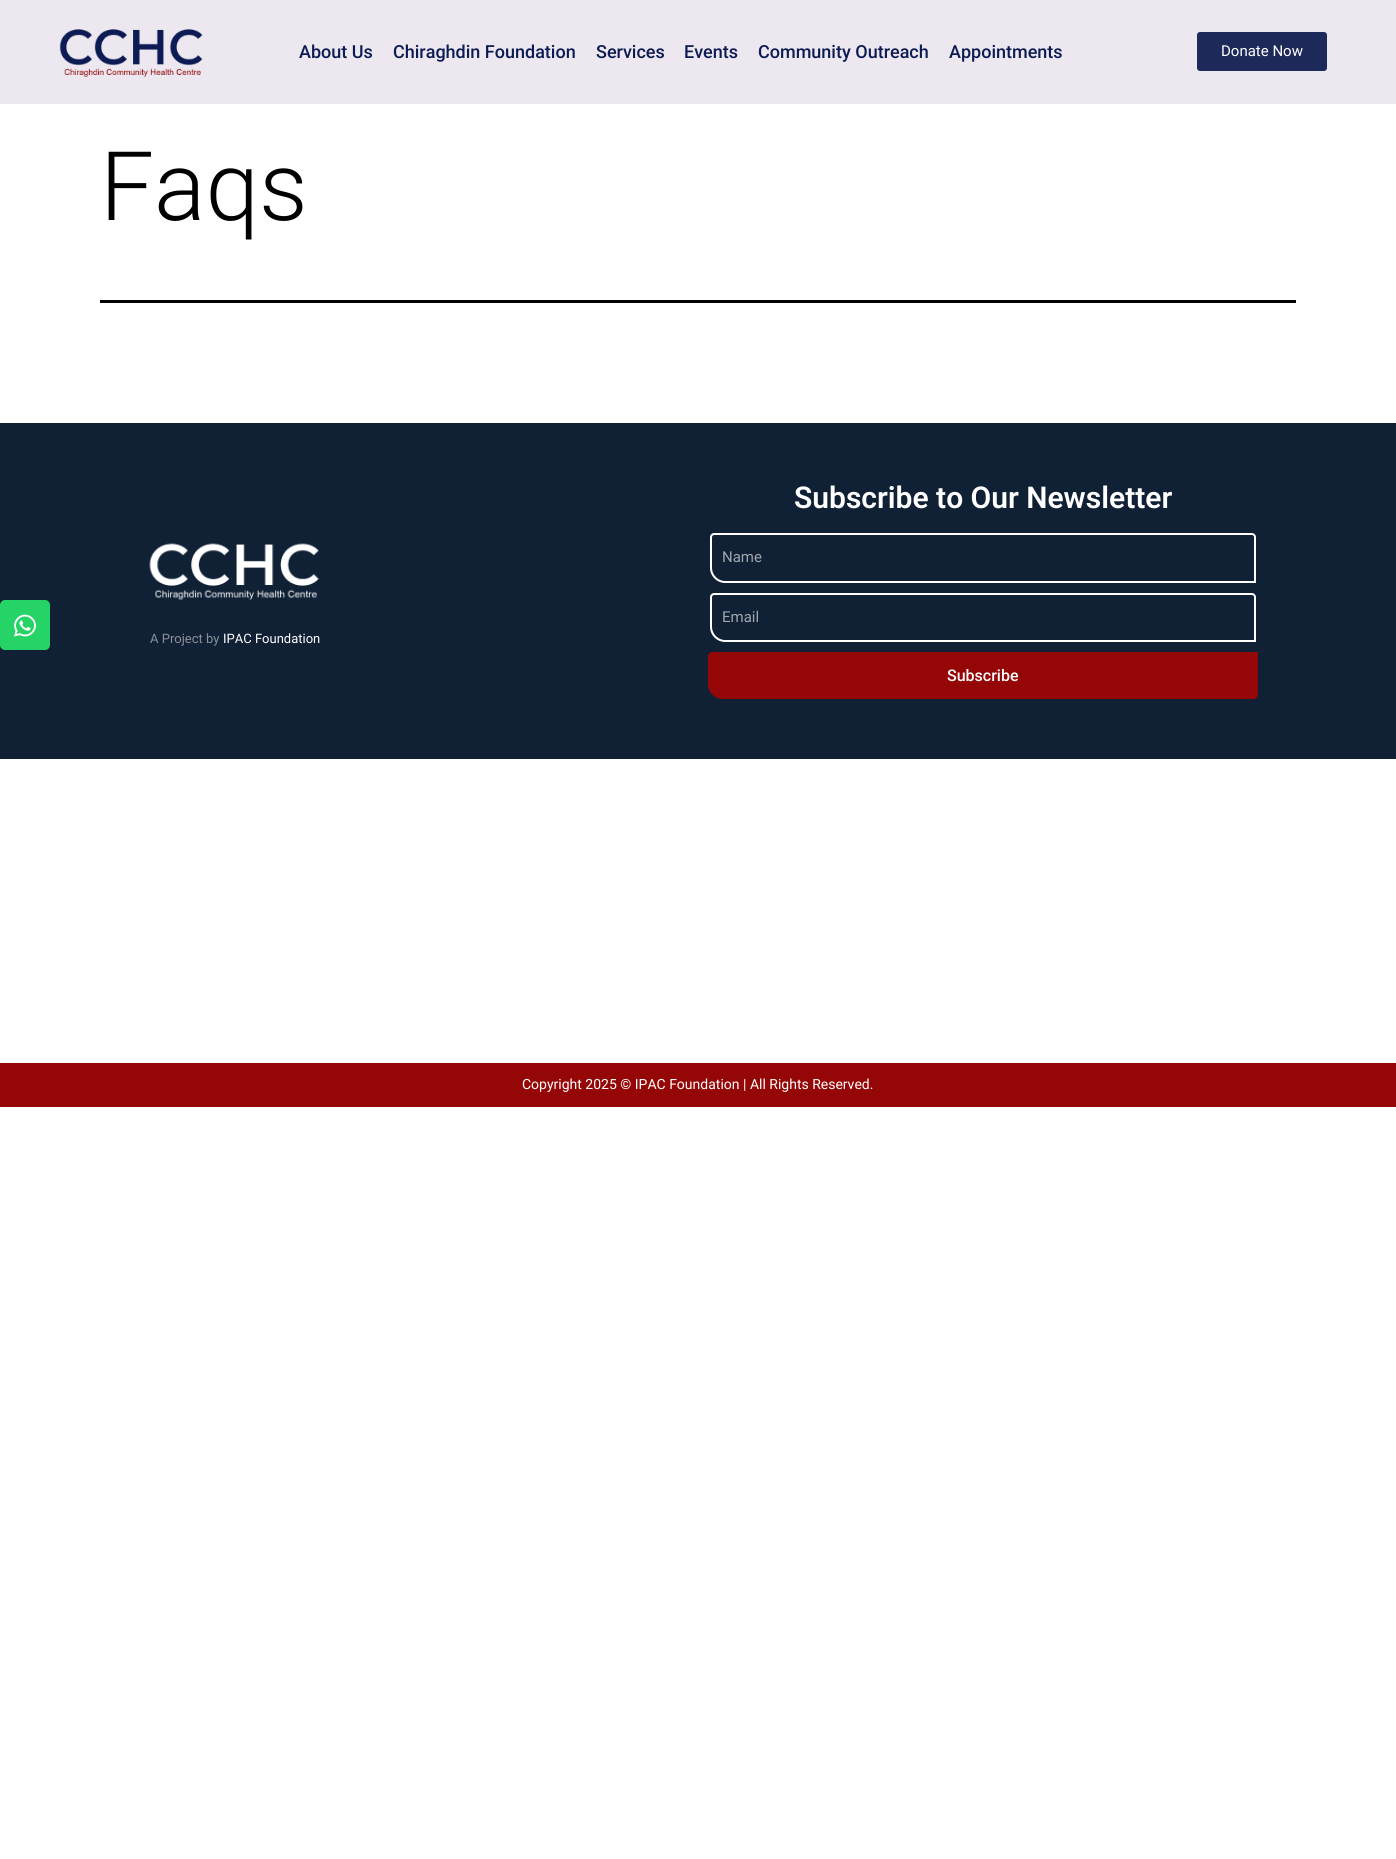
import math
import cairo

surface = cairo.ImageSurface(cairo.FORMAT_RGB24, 1396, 1859)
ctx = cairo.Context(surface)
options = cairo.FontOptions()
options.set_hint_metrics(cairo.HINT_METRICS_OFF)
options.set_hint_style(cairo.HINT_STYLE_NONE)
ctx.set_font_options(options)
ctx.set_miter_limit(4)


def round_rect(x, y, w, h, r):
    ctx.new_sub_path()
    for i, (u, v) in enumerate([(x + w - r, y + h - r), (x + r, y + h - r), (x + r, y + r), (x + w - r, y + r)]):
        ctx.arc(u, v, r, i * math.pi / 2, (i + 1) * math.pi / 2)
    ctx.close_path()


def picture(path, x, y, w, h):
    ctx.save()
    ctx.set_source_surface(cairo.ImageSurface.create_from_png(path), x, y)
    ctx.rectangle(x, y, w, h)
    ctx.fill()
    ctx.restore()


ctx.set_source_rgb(1, 1, 1)
ctx.paint()
ctx.set_source_rgb(0.929, 0.91, 0.941)
ctx.rectangle(0, 0, 1396, 104)
ctx.fill()
picture("img1.png", 59, 29, 144, 48)
ctx.select_font_face("Roboto Medium")
ctx.set_font_size(18)
ctx.set_source_rgb(0.047, 0.106, 0.322)
ctx.move_to(299, 58)
ctx.show_text("About Us")
ctx.move_to(393, 58)
ctx.show_text("Chiraghdin Foundation")
ctx.move_to(596, 58)
ctx.show_text("Services")
ctx.move_to(684, 58)
ctx.show_text("Events")
ctx.move_to(758, 58)
ctx.show_text("Community Outreach")
ctx.move_to(949, 58)
ctx.show_text("Appointments")
ctx.set_source_rgb(0.114, 0.165, 0.349)
round_rect(1197, 32, 130, 39, 3)
ctx.fill()
ctx.select_font_face("Roboto")
ctx.set_font_size(15)
ctx.set_source_rgb(1, 1, 1)
ctx.move_to(1221, 56)
ctx.show_text("Donate Now")
ctx.set_source_rgb(0.063, 0.125, 0.208)
ctx.rectangle(0, 423, 1396, 336)
ctx.fill()
ctx.set_source_rgb(0.145, 0.827, 0.4)
round_rect(0, 600, 50, 50, 5)
ctx.fill()
picture("img2.png", 14, 614, 22, 23)
ctx.set_source_rgb(0, 0, 0)
ctx.rectangle(100, 300, 1196, 3)
ctx.fill()
ctx.select_font_face("Roboto Light")
ctx.set_font_size(96)
ctx.move_to(100, 220)
ctx.show_text("Faqs")
picture("img3.png", 149, 543, 170, 57)
ctx.select_font_face("Roboto")
ctx.set_font_size(13)
ctx.set_source_rgb(0.541, 0.565, 0.6)
ctx.move_to(150, 643)
ctx.show_text("A Project by")
ctx.set_source_rgb(1, 1, 1)
ctx.move_to(223, 643)
ctx.show_text("IPAC Foundation")
ctx.select_font_face("Roboto SemiBold")
ctx.set_font_size(30)
ctx.move_to(794, 508)
ctx.show_text("Subscribe to Our Newsletter")
ctx.new_path()
ctx.move_to(714, 534)
ctx.line_to(1252, 534)
ctx.curve_to(1253.5, 534, 1255, 535.5, 1255, 537)
ctx.line_to(1255, 582)
ctx.line_to(725, 582)
ctx.curve_to(717.5, 582, 711, 575.5, 711, 568)
ctx.line_to(711, 537)
ctx.curve_to(711, 535.5, 712.5, 534, 714, 534)
ctx.close_path()
ctx.stroke()
ctx.select_font_face("Roboto")
ctx.set_font_size(15)
ctx.set_source_rgb(0.624, 0.651, 0.682)
ctx.move_to(722, 562)
ctx.show_text("Name")
ctx.new_path()
ctx.move_to(714, 594)
ctx.line_to(1252, 594)
ctx.curve_to(1253.5, 594, 1255, 595.5, 1255, 597)
ctx.line_to(1255, 641)
ctx.line_to(725, 641)
ctx.curve_to(717.5, 641, 711, 634.5, 711, 627)
ctx.line_to(711, 597)
ctx.curve_to(711, 595.5, 712.5, 594, 714, 594)
ctx.close_path()
ctx.set_source_rgb(1, 1, 1)
ctx.stroke()
ctx.set_source_rgb(0.624, 0.651, 0.682)
ctx.move_to(722, 622)
ctx.show_text("Email")
ctx.set_source_rgb(0.584, 0.024, 0.024)
ctx.new_path()
ctx.move_to(712, 652)
ctx.line_to(1258, 652)
ctx.line_to(1258, 695)
ctx.curve_to(1258, 697, 1256, 699, 1254, 699)
ctx.line_to(723, 699)
ctx.curve_to(714.5, 699, 708, 692.5, 708, 684)
ctx.line_to(708, 656)
ctx.curve_to(708, 654, 710, 652, 712, 652)
ctx.close_path()
ctx.fill()
ctx.select_font_face("Roboto Medium")
ctx.set_font_size(16)
ctx.set_source_rgb(1, 1, 1)
ctx.move_to(947, 681)
ctx.show_text("Subscribe")
ctx.set_source_rgb(0.584, 0.024, 0.024)
ctx.rectangle(0, 1063, 1396, 44)
ctx.fill()
ctx.select_font_face("Roboto")
ctx.set_font_size(14)
ctx.set_source_rgb(1, 1, 1)
ctx.move_to(522, 1089)
ctx.show_text("Copyright 2025 © IPAC Foundation | All Rights Reserved.")
surface.write_to_png("page.png")
